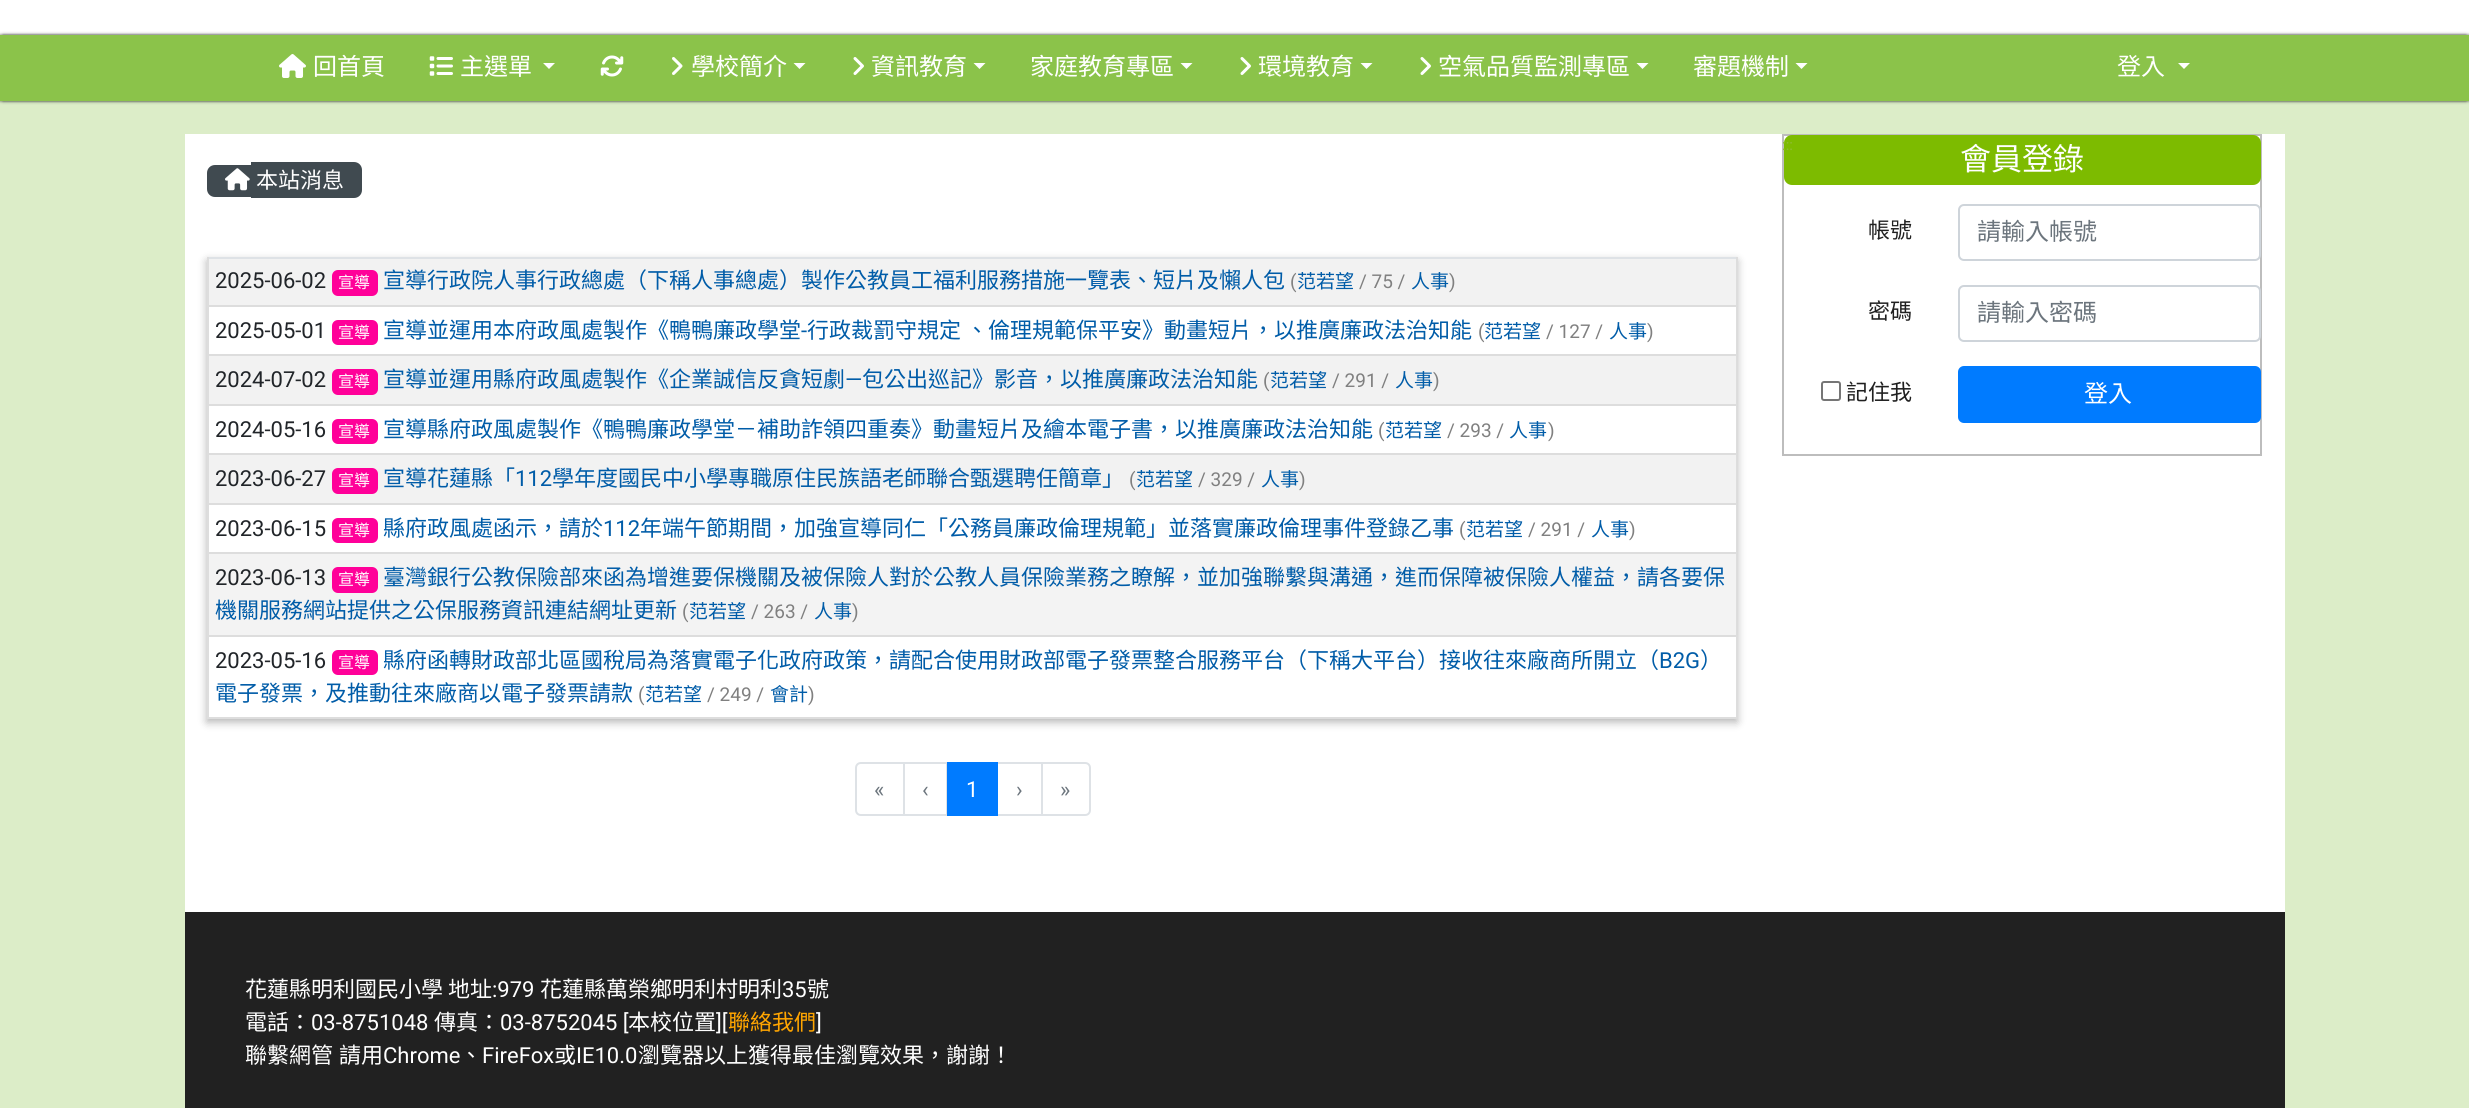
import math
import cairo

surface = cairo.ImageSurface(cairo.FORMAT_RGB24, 2469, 1108)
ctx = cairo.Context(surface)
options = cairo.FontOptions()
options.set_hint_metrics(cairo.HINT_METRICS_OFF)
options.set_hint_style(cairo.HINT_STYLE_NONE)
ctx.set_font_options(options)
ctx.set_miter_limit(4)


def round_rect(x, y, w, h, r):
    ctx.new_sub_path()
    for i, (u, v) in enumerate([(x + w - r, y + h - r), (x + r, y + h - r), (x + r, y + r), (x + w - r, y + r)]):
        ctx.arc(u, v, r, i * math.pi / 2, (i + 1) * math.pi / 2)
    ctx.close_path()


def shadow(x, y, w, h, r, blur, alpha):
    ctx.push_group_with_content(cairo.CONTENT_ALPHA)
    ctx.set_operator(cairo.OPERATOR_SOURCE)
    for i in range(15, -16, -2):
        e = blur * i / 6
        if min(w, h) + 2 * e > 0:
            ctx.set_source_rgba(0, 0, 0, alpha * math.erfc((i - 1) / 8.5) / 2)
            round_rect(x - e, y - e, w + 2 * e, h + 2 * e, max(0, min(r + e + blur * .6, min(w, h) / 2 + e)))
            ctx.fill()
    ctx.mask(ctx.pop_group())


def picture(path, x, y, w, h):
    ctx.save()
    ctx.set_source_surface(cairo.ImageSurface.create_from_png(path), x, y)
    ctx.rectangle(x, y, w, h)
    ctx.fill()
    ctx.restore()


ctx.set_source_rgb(0.863, 0.929, 0.784)
ctx.paint()
ctx.set_source_rgb(1, 1, 1)
ctx.rectangle(0, 0, 2469, 35)
ctx.fill()
ctx.set_source_rgb(0.2, 0.2, 0.2)
shadow(-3, 35, 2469, 66, 0, 1.5, 0.7)
shadow(3, 35, 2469, 66, 0, 1.5, 0.7)
ctx.set_source_rgb(0.545, 0.765, 0.29)
ctx.rectangle(0, 35, 2469, 66)
ctx.fill()
picture("img1.png", 279, 54, 27, 24)
ctx.select_font_face("Noto Sans CJK TC")
ctx.set_font_size(24)
ctx.set_source_rgb(1, 1, 1)
ctx.move_to(313, 75)
ctx.show_text("回首頁")
picture("img2.png", 429, 56, 24, 20)
ctx.move_to(460, 75)
ctx.show_text("主選單")
ctx.new_path()
ctx.move_to(543, 63)
ctx.line_to(555, 63)
ctx.line_to(549, 69)
ctx.close_path()
ctx.fill()
picture("img3.png", 600, 55, 24, 22)
picture("img4.png", 672, 57, 11, 18)
ctx.move_to(691, 75)
ctx.show_text("學校簡介")
ctx.new_path()
ctx.move_to(793.5, 63)
ctx.line_to(805.5, 63)
ctx.line_to(799.5, 69)
ctx.close_path()
ctx.fill()
picture("img5.png", 853, 57, 11, 18)
ctx.move_to(871, 75)
ctx.show_text("資訊教育")
ctx.new_path()
ctx.move_to(973.5, 63)
ctx.line_to(985.5, 63)
ctx.line_to(979.5, 69)
ctx.close_path()
ctx.fill()
ctx.move_to(1030, 75)
ctx.show_text("家庭教育專區")
ctx.new_path()
ctx.move_to(1180.5, 63)
ctx.line_to(1192.5, 63)
ctx.line_to(1186.5, 69)
ctx.close_path()
ctx.fill()
picture("img5.png", 1240, 57, 11, 18)
ctx.move_to(1258, 75)
ctx.show_text("環境教育")
ctx.new_path()
ctx.move_to(1360.5, 63)
ctx.line_to(1372.5, 63)
ctx.line_to(1366.5, 69)
ctx.close_path()
ctx.fill()
picture("img5.png", 1420, 57, 11, 18)
ctx.move_to(1438, 75)
ctx.show_text("空氣品質監測專區")
ctx.new_path()
ctx.move_to(1636.5, 63)
ctx.line_to(1648.5, 63)
ctx.line_to(1642.5, 69)
ctx.close_path()
ctx.fill()
ctx.move_to(1693, 75)
ctx.show_text("審題機制")
ctx.new_path()
ctx.move_to(1795.5, 63)
ctx.line_to(1807.5, 63)
ctx.line_to(1801.5, 69)
ctx.close_path()
ctx.fill()
ctx.move_to(2117, 75)
ctx.show_text("登入")
ctx.new_path()
ctx.move_to(2178, 63)
ctx.line_to(2190, 63)
ctx.line_to(2184, 69)
ctx.close_path()
ctx.fill()
ctx.rectangle(185, 134, 2100, 778)
ctx.fill()
ctx.set_source_rgb(0.251, 0.29, 0.314)
ctx.new_path()
ctx.move_to(215, 165)
ctx.line_to(251, 165)
ctx.line_to(251, 197)
ctx.line_to(215, 197)
ctx.curve_to(210.5, 197, 207, 193.5, 207, 189)
ctx.line_to(207, 173)
ctx.curve_to(207, 168.5, 210.5, 165, 215, 165)
ctx.close_path()
ctx.fill()
ctx.new_path()
ctx.move_to(251, 162)
ctx.line_to(354, 162)
ctx.curve_to(358.5, 162, 362, 165.5, 362, 170)
ctx.line_to(362, 190)
ctx.curve_to(362, 194.5, 358.5, 198, 354, 198)
ctx.line_to(251, 198)
ctx.close_path()
ctx.fill()
picture("img6.png", 225, 168, 25, 23)
ctx.set_font_size(22)
ctx.set_source_rgb(1, 1, 1)
ctx.move_to(256, 188)
ctx.show_text("本站消息")
ctx.save()
ctx.set_fill_rule(cairo.FILL_RULE_EVEN_ODD)
ctx.new_path()
ctx.move_to(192, 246)
ctx.line_to(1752, 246)
ctx.line_to(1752, 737)
ctx.line_to(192, 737)
ctx.close_path()
ctx.move_to(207, 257)
ctx.line_to(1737, 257)
ctx.line_to(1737, 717)
ctx.line_to(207, 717)
ctx.close_path()
ctx.clip()
ctx.set_source_rgb(0, 0, 0)
shadow(207, 261, 1530, 461, 0, 4.5, 0.3)
ctx.restore()
ctx.set_source_rgb(0.949, 0.949, 0.949)
ctx.rectangle(209, 259, 1527, 46)
ctx.fill()
ctx.set_source_rgb(0.871, 0.886, 0.902)
ctx.rectangle(207, 257, 1530, 2)
ctx.fill()
ctx.set_source_rgb(0.867, 0.867, 0.867)
ctx.rectangle(1736, 635, 2, 84)
ctx.fill()
ctx.rectangle(1736, 305, 1, 331)
ctx.fill()
ctx.rectangle(1736, 257, 2, 49)
ctx.fill()
ctx.rectangle(207, 717, 1530, 2)
ctx.fill()
ctx.rectangle(207, 635, 2, 84)
ctx.fill()
ctx.rectangle(207, 635, 1530, 2)
ctx.fill()
ctx.rectangle(207, 552, 2, 84)
ctx.fill()
ctx.rectangle(207, 552, 1530, 2)
ctx.fill()
ctx.rectangle(207, 503, 2, 51)
ctx.fill()
ctx.rectangle(207, 503, 1530, 2)
ctx.fill()
ctx.rectangle(207, 453, 2, 51)
ctx.fill()
ctx.rectangle(207, 453, 1530, 2)
ctx.fill()
ctx.rectangle(207, 404, 2, 51)
ctx.fill()
ctx.rectangle(207, 404, 1530, 2)
ctx.fill()
ctx.rectangle(207, 354, 2, 51)
ctx.fill()
ctx.rectangle(207, 354, 1530, 2)
ctx.fill()
ctx.rectangle(207, 305, 2, 51)
ctx.fill()
ctx.rectangle(207, 305, 1530, 2)
ctx.fill()
ctx.rectangle(207, 257, 2, 49)
ctx.fill()
ctx.select_font_face("Roboto")
ctx.set_source_rgb(0.129, 0.145, 0.161)
ctx.move_to(215, 288)
ctx.show_text("2025-06-02")
ctx.set_source_rgb(1, 0, 0.6)
round_rect(332, 270, 46, 26, 6)
ctx.fill()
ctx.select_font_face("Noto Sans CJK TC")
ctx.set_font_size(16)
ctx.set_source_rgb(1, 1, 1)
ctx.move_to(338, 288)
ctx.show_text("宣導")
ctx.set_font_size(22)
ctx.set_source_rgb(0, 0.361, 0.659)
ctx.move_to(383, 288)
ctx.show_text("宣導行政院人事行政總處（下稱人事總處）製作公教員工福利服務措施一覽表、短片及懶人包")
ctx.select_font_face("Roboto")
ctx.set_font_size(19)
ctx.set_source_rgb(0.502, 0.502, 0.502)
ctx.move_to(1290, 288)
ctx.show_text("(")
ctx.select_font_face("Noto Sans CJK TC")
ctx.set_source_rgb(0, 0.361, 0.659)
ctx.move_to(1297, 288)
ctx.show_text("范若望")
ctx.select_font_face("Roboto")
ctx.set_source_rgb(0.502, 0.502, 0.502)
ctx.move_to(1359, 288)
ctx.show_text("/ 75 /")
ctx.select_font_face("Noto Sans CJK TC")
ctx.set_source_rgb(0, 0.361, 0.659)
ctx.move_to(1411, 288)
ctx.show_text("人事")
ctx.select_font_face("Roboto")
ctx.set_source_rgb(0.502, 0.502, 0.502)
ctx.move_to(1449, 288)
ctx.show_text(")")
ctx.set_font_size(22)
ctx.set_source_rgb(0.129, 0.145, 0.161)
ctx.move_to(215, 338)
ctx.show_text("2025-05-01")
ctx.set_source_rgb(1, 0, 0.6)
round_rect(332, 320, 46, 25, 6)
ctx.fill()
ctx.select_font_face("Noto Sans CJK TC")
ctx.set_font_size(16)
ctx.set_source_rgb(1, 1, 1)
ctx.move_to(338, 338)
ctx.show_text("宣導")
ctx.set_font_size(22)
ctx.set_source_rgb(0, 0.361, 0.659)
ctx.move_to(383, 338)
ctx.show_text("宣導並運用本府政風處製作《鴨鴨廉政學堂")
ctx.select_font_face("Roboto")
ctx.move_to(801, 338)
ctx.show_text("-")
ctx.select_font_face("Noto Sans CJK TC")
ctx.move_to(807, 338)
ctx.show_text("行政裁罰守規定 、倫理規範保平安》動畫短片，以推廣廉政法治知能")
ctx.select_font_face("Roboto")
ctx.set_font_size(19)
ctx.set_source_rgb(0.502, 0.502, 0.502)
ctx.move_to(1478, 338)
ctx.show_text("(")
ctx.select_font_face("Noto Sans CJK TC")
ctx.set_source_rgb(0, 0.361, 0.659)
ctx.move_to(1484, 338)
ctx.show_text("范若望")
ctx.select_font_face("Roboto")
ctx.set_source_rgb(0.502, 0.502, 0.502)
ctx.move_to(1546, 338)
ctx.show_text("/ 127 /")
ctx.select_font_face("Noto Sans CJK TC")
ctx.set_source_rgb(0, 0.361, 0.659)
ctx.move_to(1609, 338)
ctx.show_text("人事")
ctx.select_font_face("Roboto")
ctx.set_source_rgb(0.502, 0.502, 0.502)
ctx.move_to(1647, 338)
ctx.show_text(")")
ctx.set_source_rgb(0.949, 0.949, 0.949)
ctx.rectangle(209, 356, 1527, 48)
ctx.fill()
ctx.set_font_size(22)
ctx.set_source_rgb(0.129, 0.145, 0.161)
ctx.move_to(215, 387)
ctx.show_text("2024-07-02")
ctx.set_source_rgb(1, 0, 0.6)
round_rect(332, 369, 46, 26, 6)
ctx.fill()
ctx.select_font_face("Noto Sans CJK TC")
ctx.set_font_size(16)
ctx.set_source_rgb(1, 1, 1)
ctx.move_to(338, 387)
ctx.show_text("宣導")
ctx.set_font_size(22)
ctx.set_source_rgb(0, 0.361, 0.659)
ctx.move_to(383, 387)
ctx.show_text("宣導並運用縣府政風處製作《企業誠信反貪短劇")
ctx.select_font_face("Roboto")
ctx.move_to(845, 387)
ctx.show_text("—")
ctx.select_font_face("Noto Sans CJK TC")
ctx.move_to(862, 387)
ctx.show_text("包公出巡記》影音，以推廣廉政法治知能")
ctx.select_font_face("Roboto")
ctx.set_font_size(19)
ctx.set_source_rgb(0.502, 0.502, 0.502)
ctx.move_to(1263, 387)
ctx.show_text("(")
ctx.select_font_face("Noto Sans CJK TC")
ctx.set_source_rgb(0, 0.361, 0.659)
ctx.move_to(1270, 387)
ctx.show_text("范若望")
ctx.select_font_face("Roboto")
ctx.set_source_rgb(0.502, 0.502, 0.502)
ctx.move_to(1332, 387)
ctx.show_text("/ 291 /")
ctx.select_font_face("Noto Sans CJK TC")
ctx.set_source_rgb(0, 0.361, 0.659)
ctx.move_to(1395, 387)
ctx.show_text("人事")
ctx.select_font_face("Roboto")
ctx.set_source_rgb(0.502, 0.502, 0.502)
ctx.move_to(1433, 387)
ctx.show_text(")")
ctx.set_font_size(22)
ctx.set_source_rgb(0.129, 0.145, 0.161)
ctx.move_to(215, 437)
ctx.show_text("2024-05-16")
ctx.set_source_rgb(1, 0, 0.6)
round_rect(332, 419, 46, 25, 6)
ctx.fill()
ctx.select_font_face("Noto Sans CJK TC")
ctx.set_font_size(16)
ctx.set_source_rgb(1, 1, 1)
ctx.move_to(338, 437)
ctx.show_text("宣導")
ctx.set_font_size(22)
ctx.set_source_rgb(0, 0.361, 0.659)
ctx.move_to(383, 437)
ctx.show_text("宣導縣府政風處製作《鴨鴨廉政學堂－補助詐領四重奏》動畫短片及繪本電子書，以推廣廉政法治知能")
ctx.select_font_face("Roboto")
ctx.set_font_size(19)
ctx.set_source_rgb(0.502, 0.502, 0.502)
ctx.move_to(1378, 437)
ctx.show_text("(")
ctx.select_font_face("Noto Sans CJK TC")
ctx.set_source_rgb(0, 0.361, 0.659)
ctx.move_to(1385, 437)
ctx.show_text("范若望")
ctx.select_font_face("Roboto")
ctx.set_source_rgb(0.502, 0.502, 0.502)
ctx.move_to(1447, 437)
ctx.show_text("/ 293 /")
ctx.select_font_face("Noto Sans CJK TC")
ctx.set_source_rgb(0, 0.361, 0.659)
ctx.move_to(1509, 437)
ctx.show_text("人事")
ctx.select_font_face("Roboto")
ctx.set_source_rgb(0.502, 0.502, 0.502)
ctx.move_to(1548, 437)
ctx.show_text(")")
ctx.set_source_rgb(0.949, 0.949, 0.949)
ctx.rectangle(209, 455, 1527, 48)
ctx.fill()
ctx.set_font_size(22)
ctx.set_source_rgb(0.129, 0.145, 0.161)
ctx.move_to(215, 486)
ctx.show_text("2023-06-27")
ctx.set_source_rgb(1, 0, 0.6)
round_rect(332, 468, 46, 26, 6)
ctx.fill()
ctx.select_font_face("Noto Sans CJK TC")
ctx.set_font_size(16)
ctx.set_source_rgb(1, 1, 1)
ctx.move_to(338, 486)
ctx.show_text("宣導")
ctx.set_font_size(22)
ctx.set_source_rgb(0, 0.361, 0.659)
ctx.move_to(383, 486)
ctx.show_text("宣導花蓮縣「")
ctx.select_font_face("Roboto")
ctx.move_to(515, 486)
ctx.show_text("112")
ctx.select_font_face("Noto Sans CJK TC")
ctx.move_to(552, 486)
ctx.show_text("學年度國民中小學專職原住民族語老師聯合甄選聘任簡章」")
ctx.select_font_face("Roboto")
ctx.set_font_size(19)
ctx.set_source_rgb(0.502, 0.502, 0.502)
ctx.move_to(1129, 486)
ctx.show_text("(")
ctx.select_font_face("Noto Sans CJK TC")
ctx.set_source_rgb(0, 0.361, 0.659)
ctx.move_to(1136, 486)
ctx.show_text("范若望")
ctx.select_font_face("Roboto")
ctx.set_source_rgb(0.502, 0.502, 0.502)
ctx.move_to(1198, 486)
ctx.show_text("/ 329 /")
ctx.select_font_face("Noto Sans CJK TC")
ctx.set_source_rgb(0, 0.361, 0.659)
ctx.move_to(1261, 486)
ctx.show_text("人事")
ctx.select_font_face("Roboto")
ctx.set_source_rgb(0.502, 0.502, 0.502)
ctx.move_to(1299, 486)
ctx.show_text(")")
ctx.set_font_size(22)
ctx.set_source_rgb(0.129, 0.145, 0.161)
ctx.move_to(215, 536)
ctx.show_text("2023-06-15")
ctx.set_source_rgb(1, 0, 0.6)
round_rect(332, 518, 46, 25, 6)
ctx.fill()
ctx.select_font_face("Noto Sans CJK TC")
ctx.set_font_size(16)
ctx.set_source_rgb(1, 1, 1)
ctx.move_to(338, 536)
ctx.show_text("宣導")
ctx.set_font_size(22)
ctx.set_source_rgb(0, 0.361, 0.659)
ctx.move_to(383, 536)
ctx.show_text("縣府政風處函示，請於")
ctx.select_font_face("Roboto")
ctx.move_to(603, 536)
ctx.show_text("112")
ctx.select_font_face("Noto Sans CJK TC")
ctx.move_to(640, 536)
ctx.show_text("年端午節期間，加強宣導同仁「公務員廉政倫理規範」並落實廉政倫理事件登錄乙事")
ctx.select_font_face("Roboto")
ctx.set_font_size(19)
ctx.set_source_rgb(0.502, 0.502, 0.502)
ctx.move_to(1459, 536)
ctx.show_text("(")
ctx.select_font_face("Noto Sans CJK TC")
ctx.set_source_rgb(0, 0.361, 0.659)
ctx.move_to(1466, 536)
ctx.show_text("范若望")
ctx.select_font_face("Roboto")
ctx.set_source_rgb(0.502, 0.502, 0.502)
ctx.move_to(1528, 536)
ctx.show_text("/ 291 /")
ctx.select_font_face("Noto Sans CJK TC")
ctx.set_source_rgb(0, 0.361, 0.659)
ctx.move_to(1591, 536)
ctx.show_text("人事")
ctx.select_font_face("Roboto")
ctx.set_source_rgb(0.502, 0.502, 0.502)
ctx.move_to(1629, 536)
ctx.show_text(")")
ctx.set_source_rgb(0.953, 0.953, 0.953)
ctx.rectangle(209, 554, 1527, 81)
ctx.fill()
ctx.set_font_size(22)
ctx.set_source_rgb(0.129, 0.145, 0.161)
ctx.move_to(215, 585)
ctx.show_text("2023-06-13")
ctx.set_source_rgb(1, 0, 0.6)
round_rect(332, 567, 46, 26, 6)
ctx.fill()
ctx.select_font_face("Noto Sans CJK TC")
ctx.set_font_size(16)
ctx.set_source_rgb(1, 1, 1)
ctx.move_to(338, 585)
ctx.show_text("宣導")
ctx.set_font_size(22)
ctx.set_source_rgb(0, 0.361, 0.659)
ctx.move_to(383, 585)
ctx.show_text("臺灣銀行公教保險部來函為增進要保機關及被保險人對於公教人員保險業務之瞭解，並加強聯繫與溝通，進而保障被保險人權益，請各要保")
ctx.move_to(215, 618)
ctx.show_text("機關服務網站提供之公保服務資訊連結網址更新")
ctx.select_font_face("Roboto")
ctx.set_font_size(19)
ctx.set_source_rgb(0.502, 0.502, 0.502)
ctx.move_to(682, 618)
ctx.show_text("(")
ctx.select_font_face("Noto Sans CJK TC")
ctx.set_source_rgb(0, 0.361, 0.659)
ctx.move_to(689, 618)
ctx.show_text("范若望")
ctx.select_font_face("Roboto")
ctx.set_source_rgb(0.502, 0.502, 0.502)
ctx.move_to(751, 618)
ctx.show_text("/ 263 /")
ctx.select_font_face("Noto Sans CJK TC")
ctx.set_source_rgb(0, 0.361, 0.659)
ctx.move_to(814, 618)
ctx.show_text("人事")
ctx.select_font_face("Roboto")
ctx.set_source_rgb(0.502, 0.502, 0.502)
ctx.move_to(852, 618)
ctx.show_text(")")
ctx.set_font_size(22)
ctx.set_source_rgb(0.129, 0.145, 0.161)
ctx.move_to(215, 668)
ctx.show_text("2023-05-16")
ctx.set_source_rgb(1, 0, 0.6)
round_rect(332, 650, 46, 25, 6)
ctx.fill()
ctx.select_font_face("Noto Sans CJK TC")
ctx.set_font_size(16)
ctx.set_source_rgb(1, 1, 1)
ctx.move_to(338, 668)
ctx.show_text("宣導")
ctx.set_font_size(22)
ctx.set_source_rgb(0, 0.361, 0.659)
ctx.move_to(383, 668)
ctx.show_text("縣府函轉財政部北區國稅局為落實電子化政府政策，請配合使用財政部電子發票整合服務平台（下稱大平台）接收往來廠商所開立（")
ctx.select_font_face("Roboto")
ctx.move_to(1659, 668)
ctx.show_text("B2G")
ctx.select_font_face("Noto Sans CJK TC")
ctx.move_to(1700, 668)
ctx.show_text("）")
ctx.move_to(215, 701)
ctx.show_text("電子發票，及推動往來廠商以電子發票請款")
ctx.select_font_face("Roboto")
ctx.set_font_size(19)
ctx.set_source_rgb(0.502, 0.502, 0.502)
ctx.move_to(638, 701)
ctx.show_text("(")
ctx.select_font_face("Noto Sans CJK TC")
ctx.set_source_rgb(0, 0.361, 0.659)
ctx.move_to(645, 701)
ctx.show_text("范若望")
ctx.select_font_face("Roboto")
ctx.set_source_rgb(0.502, 0.502, 0.502)
ctx.move_to(707, 701)
ctx.show_text("/ 249 /")
ctx.select_font_face("Noto Sans CJK TC")
ctx.set_source_rgb(0, 0.361, 0.659)
ctx.move_to(770, 701)
ctx.show_text("會計")
ctx.select_font_face("Roboto")
ctx.set_source_rgb(0.502, 0.502, 0.502)
ctx.move_to(808, 701)
ctx.show_text(")")
ctx.new_path()
ctx.move_to(861, 763)
ctx.line_to(904, 763)
ctx.line_to(904, 815)
ctx.line_to(861, 815)
ctx.curve_to(858, 815, 856, 813, 856, 810)
ctx.line_to(856, 768)
ctx.curve_to(856, 765, 858, 763, 861, 763)
ctx.close_path()
ctx.set_source_rgb(0.871, 0.886, 0.902)
ctx.stroke()
ctx.set_font_size(22)
ctx.set_source_rgb(0.424, 0.459, 0.49)
ctx.move_to(874, 797)
ctx.show_text("«")
ctx.rectangle(904, 763, 43, 52)
ctx.set_source_rgb(0.871, 0.886, 0.902)
ctx.stroke()
ctx.set_source_rgb(0.424, 0.459, 0.49)
ctx.move_to(922, 797)
ctx.show_text("‹")
ctx.rectangle(997, 763, 45, 52)
ctx.set_source_rgb(0.871, 0.886, 0.902)
ctx.stroke()
ctx.set_source_rgb(0, 0.482, 1)
ctx.rectangle(947, 762, 51, 54)
ctx.fill()
ctx.set_source_rgb(1, 1, 1)
ctx.move_to(966, 797)
ctx.show_text("1")
ctx.set_source_rgb(0.424, 0.459, 0.49)
ctx.move_to(1016, 797)
ctx.show_text("›")
ctx.set_source_rgb(1, 1, 1)
ctx.new_path()
ctx.move_to(1042, 763)
ctx.line_to(1085, 763)
ctx.curve_to(1088, 763, 1090, 765, 1090, 768)
ctx.line_to(1090, 810)
ctx.curve_to(1090, 813, 1088, 815, 1085, 815)
ctx.line_to(1042, 815)
ctx.close_path()
ctx.fill_preserve()
ctx.set_source_rgb(0.871, 0.886, 0.902)
ctx.stroke()
ctx.set_source_rgb(0.424, 0.459, 0.49)
ctx.move_to(1060, 797)
ctx.show_text("»")
ctx.rectangle(1783, 135, 478, 320)
ctx.set_source_rgb(0.741, 0.741, 0.741)
ctx.stroke()
ctx.set_source_rgb(0.49, 0.733, 0)
round_rect(1784, 135, 477, 50, 8)
ctx.fill()
ctx.set_font_size(15)
ctx.set_source_rgb(0.557, 0.737, 0.2)
ctx.move_to(1782, 150)
ctx.show_text(":::")
ctx.select_font_face("Noto Sans CJK TC")
ctx.set_font_size(31)
ctx.set_source_rgb(1, 1, 1)
ctx.move_to(1960, 170)
ctx.show_text("會員登錄")
ctx.set_font_size(22)
ctx.set_source_rgb(0.125, 0.125, 0.125)
ctx.move_to(1868, 238)
ctx.show_text("帳號")
round_rect(1959, 205, 301, 55, 5)
ctx.set_source_rgb(0.808, 0.831, 0.855)
ctx.stroke()
ctx.set_font_size(24)
ctx.set_source_rgb(0.424, 0.459, 0.49)
ctx.move_to(1977, 240)
ctx.show_text("請輸入帳號")
ctx.set_font_size(22)
ctx.set_source_rgb(0.125, 0.125, 0.125)
ctx.move_to(1868, 319)
ctx.show_text("密碼")
round_rect(1959, 286, 301, 55, 5)
ctx.set_source_rgb(0.808, 0.831, 0.855)
ctx.stroke()
ctx.set_font_size(24)
ctx.set_source_rgb(0.424, 0.459, 0.49)
ctx.move_to(1977, 321)
ctx.show_text("請輸入密碼")
round_rect(1822, 382, 18, 18, 2)
ctx.set_source_rgb(0.463, 0.463, 0.463)
ctx.stroke()
ctx.set_font_size(22)
ctx.set_source_rgb(0.125, 0.125, 0.125)
ctx.move_to(1846, 400)
ctx.show_text("記住我")
ctx.set_source_rgb(0, 0.482, 1)
round_rect(1959, 367, 301, 55, 5)
ctx.fill_preserve()
ctx.stroke()
ctx.set_font_size(24)
ctx.set_source_rgb(1, 1, 1)
ctx.move_to(2084, 402)
ctx.show_text("登入")
ctx.set_source_rgb(0.129, 0.129, 0.129)
ctx.rectangle(185, 912, 2100, 196)
ctx.fill()
ctx.set_font_size(22)
ctx.set_source_rgb(1, 1, 1)
ctx.move_to(245, 997)
ctx.show_text("花蓮縣明利國民小學 地址")
ctx.select_font_face("Roboto")
ctx.move_to(492, 997)
ctx.show_text(":979")
ctx.select_font_face("Noto Sans CJK TC")
ctx.move_to(540, 997)
ctx.show_text("花蓮縣萬榮鄉明利村明利")
ctx.select_font_face("Roboto")
ctx.move_to(782, 997)
ctx.show_text("35")
ctx.select_font_face("Noto Sans CJK TC")
ctx.move_to(807, 997)
ctx.show_text("號")
ctx.move_to(245, 1030)
ctx.show_text("電話：")
ctx.select_font_face("Roboto")
ctx.move_to(311, 1030)
ctx.show_text("03-8751048")
ctx.select_font_face("Noto Sans CJK TC")
ctx.move_to(434, 1030)
ctx.show_text("傳真：")
ctx.select_font_face("Roboto")
ctx.move_to(500, 1030)
ctx.show_text("03-8752045 [")
ctx.select_font_face("Noto Sans CJK TC")
ctx.move_to(628, 1030)
ctx.show_text("本校位置")
ctx.select_font_face("Roboto")
ctx.move_to(716, 1030)
ctx.show_text("][")
ctx.select_font_face("Noto Sans CJK TC")
ctx.set_source_rgb(1, 0.647, 0)
ctx.move_to(728, 1030)
ctx.show_text("聯絡我們")
ctx.select_font_face("Roboto")
ctx.set_source_rgb(1, 1, 1)
ctx.move_to(816, 1030)
ctx.show_text("]")
ctx.select_font_face("Noto Sans CJK TC")
ctx.move_to(245, 1063)
ctx.show_text("聯繫網管")
ctx.move_to(339, 1063)
ctx.show_text("請用")
ctx.select_font_face("Roboto")
ctx.move_to(383, 1063)
ctx.show_text("Chrome")
ctx.select_font_face("Noto Sans CJK TC")
ctx.move_to(460, 1063)
ctx.show_text("、")
ctx.select_font_face("Roboto")
ctx.move_to(482, 1063)
ctx.show_text("FireFox")
ctx.select_font_face("Noto Sans CJK TC")
ctx.move_to(554, 1063)
ctx.show_text("或")
ctx.select_font_face("Roboto")
ctx.move_to(576, 1063)
ctx.show_text("IE10.0")
ctx.select_font_face("Noto Sans CJK TC")
ctx.move_to(638, 1063)
ctx.show_text("瀏覽器以上獲得最佳瀏覽效果，謝謝！")
surface.write_to_png("page.png")
